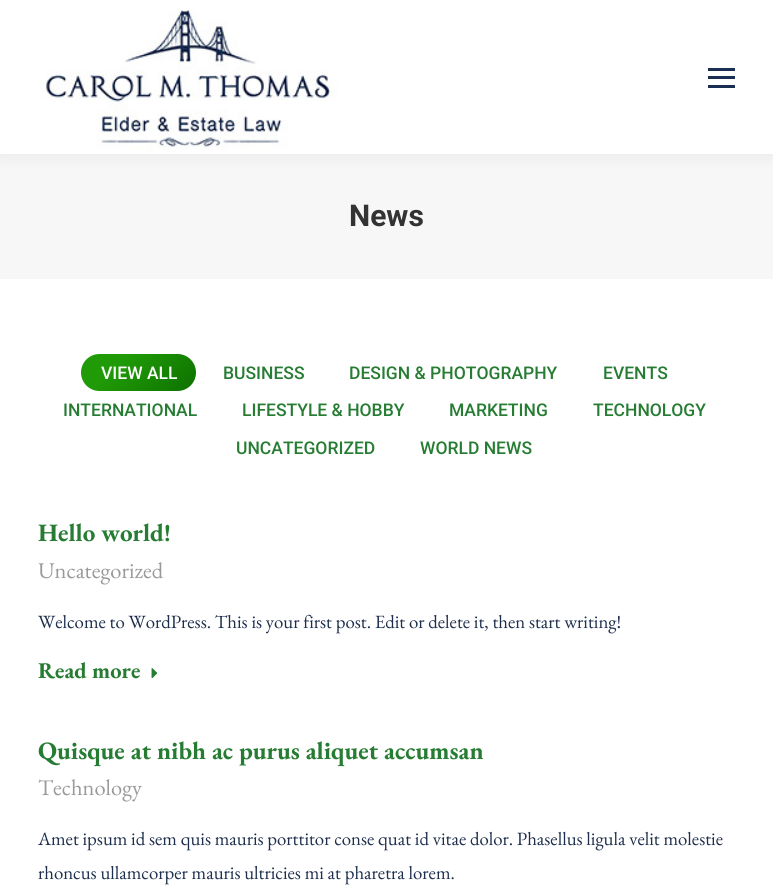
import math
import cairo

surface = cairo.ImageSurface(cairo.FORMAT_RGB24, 773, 888)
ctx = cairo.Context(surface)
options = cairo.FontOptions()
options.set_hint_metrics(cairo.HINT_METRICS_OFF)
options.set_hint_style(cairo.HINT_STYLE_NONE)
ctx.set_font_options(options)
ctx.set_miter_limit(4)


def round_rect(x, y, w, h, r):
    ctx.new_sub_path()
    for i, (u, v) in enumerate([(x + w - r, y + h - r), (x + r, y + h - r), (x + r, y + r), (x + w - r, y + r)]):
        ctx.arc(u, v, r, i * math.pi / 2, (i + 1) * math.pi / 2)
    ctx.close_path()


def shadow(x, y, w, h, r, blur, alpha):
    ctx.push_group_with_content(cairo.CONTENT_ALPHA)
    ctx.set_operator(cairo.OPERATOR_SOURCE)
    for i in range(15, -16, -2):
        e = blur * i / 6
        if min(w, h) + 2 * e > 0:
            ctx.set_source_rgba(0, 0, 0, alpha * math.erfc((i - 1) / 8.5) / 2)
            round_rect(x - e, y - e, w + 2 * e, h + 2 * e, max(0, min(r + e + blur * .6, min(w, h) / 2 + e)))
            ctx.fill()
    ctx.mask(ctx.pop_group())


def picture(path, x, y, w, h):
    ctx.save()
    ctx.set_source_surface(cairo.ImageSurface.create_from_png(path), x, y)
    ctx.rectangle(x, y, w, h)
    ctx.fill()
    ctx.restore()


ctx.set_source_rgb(1, 1, 1)
ctx.paint()
ctx.set_source_rgb(0.965, 0.965, 0.965)
ctx.rectangle(0, 154, 773, 125)
ctx.fill()
ctx.set_source_rgb(0, 0, 0)
shadow(-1, -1, 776, 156, 0, 9.5, 0.07)
ctx.set_source_rgb(1, 1, 1)
ctx.rectangle(0, 0, 773, 154)
ctx.fill()
picture("img1.png", 40, 9, 297, 141)
ctx.set_source_rgb(0.098, 0.18, 0.314)
ctx.rectangle(708, 76, 27, 3)
ctx.fill()
ctx.rectangle(708, 68, 27, 3)
ctx.fill()
ctx.rectangle(708, 85, 27, 3)
ctx.fill()
ctx.select_font_face("Roboto", cairo.FONT_SLANT_NORMAL, cairo.FONT_WEIGHT_BOLD)
ctx.set_font_size(30)
ctx.set_source_rgb(0.2, 0.2, 0.2)
ctx.move_to(349, 226)
ctx.show_text("News")
gradient = cairo.LinearGradient(101, 334, 177, 411)
gradient.add_color_stop_rgba(0.3, 0.125, 0.608, 0.027, 1)
gradient.add_color_stop_rgba(1, 0.051, 0.439, 0, 1)
ctx.set_source(gradient)
round_rect(81, 354, 115, 37, 18.5)
ctx.fill()
ctx.select_font_face("Roboto Medium")
ctx.set_font_size(17.5)
ctx.set_source_rgb(1, 1, 1)
ctx.move_to(101, 379)
ctx.show_text("VIEW ALL")
ctx.set_source_rgb(0.149, 0.486, 0.196)
ctx.move_to(223, 379)
ctx.show_text("BUSINESS")
ctx.move_to(349, 379)
ctx.show_text("DESIGN & PHOTOGRAPHY")
ctx.move_to(603, 379)
ctx.show_text("EVENTS")
ctx.move_to(63, 416)
ctx.show_text("INTERNATIONAL")
ctx.move_to(242, 416)
ctx.show_text("LIFESTYLE & HOBBY")
ctx.move_to(449, 416)
ctx.show_text("MARKETING")
ctx.move_to(593, 416)
ctx.show_text("TECHNOLOGY")
ctx.move_to(236, 454)
ctx.show_text("UNCATEGORIZED")
ctx.move_to(420, 454)
ctx.show_text("WORLD NEWS")
ctx.select_font_face("EB Garamond", cairo.FONT_SLANT_NORMAL, cairo.FONT_WEIGHT_BOLD)
ctx.set_font_size(25)
ctx.move_to(38, 541)
ctx.show_text("Hello world!")
ctx.select_font_face("EB Garamond")
ctx.set_font_size(22.5)
ctx.set_source_rgb(0.6, 0.6, 0.6)
ctx.move_to(38, 578)
ctx.show_text("Uncategorized")
ctx.set_font_size(18.75)
ctx.set_source_rgb(0.114, 0.18, 0.302)
ctx.move_to(38, 628)
ctx.show_text("Welcome to WordPress. This is your first post. Edit or delete it, then start writing!")
ctx.select_font_face("EB Garamond", cairo.FONT_SLANT_NORMAL, cairo.FONT_WEIGHT_BOLD)
ctx.set_font_size(22.5)
ctx.set_source_rgb(0.149, 0.486, 0.196)
ctx.move_to(38, 678)
ctx.show_text("Read more")
picture("img2.png", 151, 668, 7, 11)
ctx.set_font_size(25)
ctx.move_to(38, 759)
ctx.show_text("Quisque at nibh ac purus aliquet accumsan")
ctx.select_font_face("EB Garamond")
ctx.set_font_size(22.5)
ctx.set_source_rgb(0.6, 0.6, 0.6)
ctx.move_to(38, 795)
ctx.show_text("Technology")
ctx.set_font_size(18.75)
ctx.set_source_rgb(0.114, 0.18, 0.302)
ctx.move_to(38, 845)
ctx.show_text("Amet ipsum id sem quis mauris porttitor conse quat id vitae dolor. Phasellus ligula velit molestie")
ctx.move_to(38, 879)
ctx.show_text("rhoncus ullamcorper mauris ultricies mi at pharetra lorem.")
surface.write_to_png("page.png")
